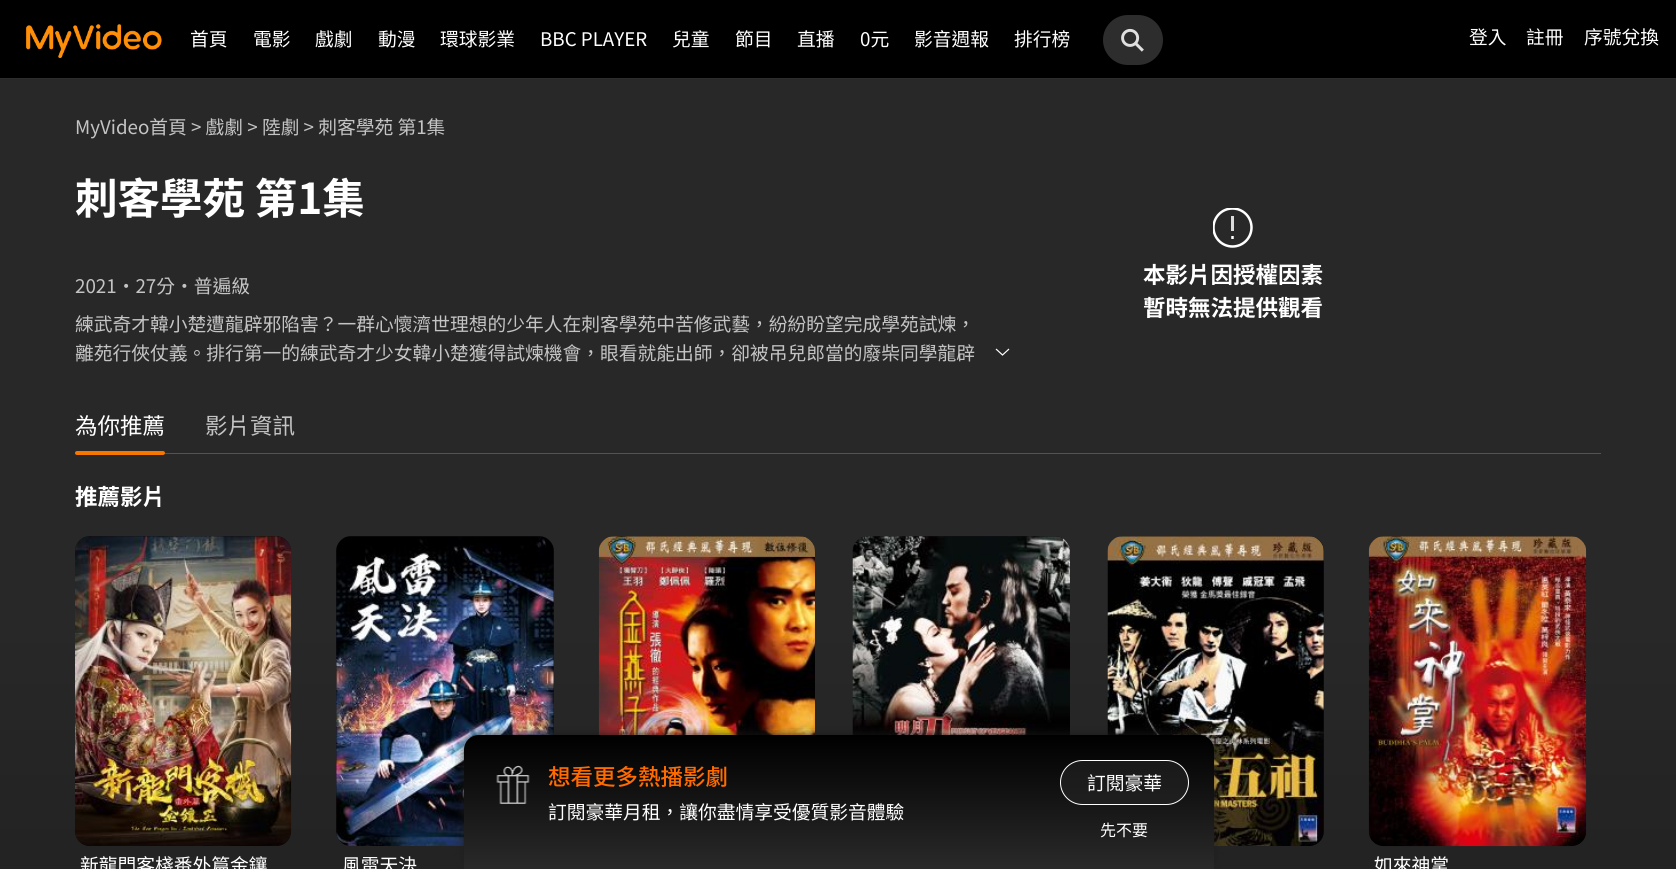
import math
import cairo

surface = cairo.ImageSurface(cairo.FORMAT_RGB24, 1676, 869)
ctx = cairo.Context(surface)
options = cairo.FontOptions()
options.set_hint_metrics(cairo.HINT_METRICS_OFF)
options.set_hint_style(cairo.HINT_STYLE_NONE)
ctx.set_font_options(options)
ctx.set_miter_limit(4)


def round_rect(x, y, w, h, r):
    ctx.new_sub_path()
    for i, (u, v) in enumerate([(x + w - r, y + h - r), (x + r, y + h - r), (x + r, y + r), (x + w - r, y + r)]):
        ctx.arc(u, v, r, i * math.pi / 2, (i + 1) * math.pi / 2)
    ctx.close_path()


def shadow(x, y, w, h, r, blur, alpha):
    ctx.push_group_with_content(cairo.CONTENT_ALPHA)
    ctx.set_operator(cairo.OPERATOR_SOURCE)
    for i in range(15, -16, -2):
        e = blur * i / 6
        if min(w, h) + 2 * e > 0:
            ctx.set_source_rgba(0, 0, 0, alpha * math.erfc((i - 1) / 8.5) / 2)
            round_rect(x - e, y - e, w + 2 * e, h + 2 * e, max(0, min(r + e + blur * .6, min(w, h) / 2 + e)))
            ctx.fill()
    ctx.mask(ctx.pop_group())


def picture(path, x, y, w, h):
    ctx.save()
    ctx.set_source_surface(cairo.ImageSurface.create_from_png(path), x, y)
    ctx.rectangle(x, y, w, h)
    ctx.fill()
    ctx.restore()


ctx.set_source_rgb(1, 1, 1)
ctx.paint()
ctx.set_source_rgb(0, 0, 0)
ctx.rectangle(0, 0, 1676, 78)
ctx.fill()
ctx.set_source_rgb(0.176, 0.176, 0.176)
ctx.rectangle(0, 78, 1676, 1)
ctx.fill()
picture("img1.png", 26, 24, 136, 34)
ctx.select_font_face("Noto Sans TC")
ctx.set_font_size(18.75)
ctx.set_source_rgb(1, 1, 1)
ctx.move_to(190, 46)
ctx.show_text("首頁")
ctx.move_to(253, 46)
ctx.show_text("電影")
ctx.move_to(315, 46)
ctx.show_text("戲劇")
ctx.move_to(378, 46)
ctx.show_text("動漫")
ctx.move_to(440, 46)
ctx.show_text("環球影業")
ctx.move_to(540, 46)
ctx.show_text("BBC PLAYER")
ctx.move_to(672, 46)
ctx.show_text("兒童")
ctx.move_to(735, 46)
ctx.show_text("節目")
ctx.move_to(797, 46)
ctx.show_text("直播")
ctx.move_to(860, 46)
ctx.show_text("0元")
ctx.move_to(914, 46)
ctx.show_text("影音週報")
ctx.move_to(1014, 46)
ctx.show_text("排行榜")
ctx.set_source_rgb(0.176, 0.176, 0.176)
round_rect(1103, 15, 60, 50, 25)
ctx.fill()
picture("img2.png", 1121, 28, 23, 24)
ctx.set_source_rgb(1, 1, 1)
ctx.move_to(1469, 44)
ctx.show_text("登入")
ctx.move_to(1526, 44)
ctx.show_text("註冊")
ctx.move_to(1584, 44)
ctx.show_text("序號兌換")
gradient = cairo.LinearGradient(838, 77, 838, 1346)
gradient.add_color_stop_rgba(0.43, 0.157, 0.157, 0.157, 1)
gradient.add_color_stop_rgba(0.46, 0.153, 0.153, 0.153, 1)
gradient.add_color_stop_rgba(0.57, 0.141, 0.141, 0.141, 1)
gradient.add_color_stop_rgba(0.67, 0.133, 0.133, 0.133, 1)
gradient.add_color_stop_rgba(0.74, 0.129, 0.129, 0.129, 1)
ctx.set_source(gradient)
ctx.rectangle(0, 79, 1676, 790)
ctx.fill()
ctx.set_source_rgb(0.769, 0.769, 0.769)
ctx.move_to(75, 134)
ctx.show_text("MyVideo首頁 > 戲劇 > 陸劇 > 刺客學苑 第1集")
ctx.select_font_face("Noto Sans TC", cairo.FONT_SLANT_NORMAL, cairo.FONT_WEIGHT_BOLD)
ctx.set_font_size(42.5)
ctx.set_source_rgb(1, 1, 1)
ctx.move_to(75, 214)
ctx.show_text("刺客學苑 第1集")
ctx.select_font_face("Noto Sans TC")
ctx.set_font_size(18.75)
ctx.set_source_rgb(0.769, 0.769, 0.769)
ctx.move_to(75, 293)
ctx.show_text("2021・27分・普遍級")
ctx.move_to(75, 331)
ctx.show_text("練武奇才韓小楚遭龍辟邪陷害？一群心懷濟世理想的少年人在刺客學苑中苦修武藝，紛紛盼望完成學苑試煉，")
ctx.move_to(75, 360)
ctx.show_text("離苑行俠仗義。排行第一的練武奇才少女韓小楚獲得試煉機會，眼看就能出師，卻被吊兒郎當的廢柴同學龍辟")
ctx.new_path()
ctx.move_to(1009, 349)
ctx.line_to(1002.5, 355)
ctx.line_to(996, 349)
ctx.set_source_rgb(1, 1, 1)
ctx.set_line_width(1.2)
ctx.stroke()
ctx.save()
ctx.rectangle(1213, 208, 40, 40)
ctx.clip()
ctx.arc(1232.5, 227.5, 19, 0, 2 * math.pi)
ctx.set_line_width(2.5)
ctx.stroke()
ctx.restore()
ctx.set_source_rgb(0.859, 0.859, 0.859)
ctx.rectangle(1231, 216, 3, 15)
ctx.fill()
ctx.new_path()
ctx.move_to(1232.5, 239)
ctx.line_to(1232.5, 236)
ctx.set_source_rgb(1, 1, 1)
ctx.set_line_width(2.5)
ctx.stroke()
ctx.select_font_face("Noto Sans TC", cairo.FONT_SLANT_NORMAL, cairo.FONT_WEIGHT_BOLD)
ctx.set_font_size(22.5)
ctx.move_to(1143, 283)
ctx.show_text("本影片因授權因素")
ctx.move_to(1143, 316)
ctx.show_text("暫時無法提供觀看")
ctx.set_source_rgb(0.325, 0.325, 0.325)
ctx.rectangle(75, 453, 1526, 1)
ctx.fill()
ctx.select_font_face("Noto Sans TC")
ctx.set_source_rgb(1, 1, 1)
ctx.move_to(75, 434)
ctx.show_text("為你推薦")
ctx.set_source_rgb(0.769, 0.769, 0.769)
ctx.move_to(205, 434)
ctx.show_text("影片資訊")
ctx.set_source_rgb(0.961, 0.463, 0)
round_rect(75, 451, 90, 4, 2)
ctx.fill()
ctx.select_font_face("Noto Sans TC", cairo.FONT_SLANT_NORMAL, cairo.FONT_WEIGHT_BOLD)
ctx.set_source_rgb(1, 1, 1)
ctx.move_to(75, 505)
ctx.show_text("推薦影片")
ctx.set_source_rgb(0.071, 0.071, 0.071)
round_rect(599, 536, 216, 310, 15)
ctx.fill()
picture("img3.png", 598, 536, 217, 199)
round_rect(853, 536, 217, 310, 15)
ctx.fill()
picture("img4.png", 852, 536, 218, 199)
round_rect(1108, 536, 216, 310, 15)
ctx.fill()
picture("img5.png", 1107, 536, 217, 310)
round_rect(75, 536, 216, 310, 15)
ctx.fill()
picture("img6.png", 75, 536, 217, 310)
ctx.select_font_face("Noto Sans TC")
ctx.set_font_size(18.75)
ctx.set_source_rgb(1, 1, 1)
ctx.move_to(80, 872)
ctx.show_text("新龍門客棧番外篇金鑲")
ctx.set_source_rgb(0.071, 0.071, 0.071)
round_rect(336, 536, 218, 310, 15)
ctx.fill()
picture("img7.png", 336, 536, 218, 310)
ctx.set_source_rgb(1, 1, 1)
ctx.move_to(342, 872)
ctx.show_text("風雷天決")
ctx.set_source_rgb(0.071, 0.071, 0.071)
round_rect(1369, 536, 217, 310, 15)
ctx.fill()
picture("img8.png", 1368, 536, 219, 311)
ctx.set_source_rgb(1, 1, 1)
ctx.move_to(1374, 872)
ctx.show_text("如來神掌")
ctx.set_source_rgb(0.106, 0.106, 0.106)
shadow(464, 734, 750, 135, 15, 5, 0.8)
gradient = cairo.LinearGradient(839, 735, 839, 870)
gradient.add_color_stop_rgba(0, 0, 0, 0, 1)
gradient.add_color_stop_rgba(1, 0.165, 0.165, 0.165, 1)
ctx.set_source(gradient)
ctx.new_path()
ctx.move_to(479, 735)
ctx.line_to(1199, 735)
ctx.curve_to(1207.5, 735, 1214, 741.5, 1214, 750)
ctx.line_to(1214, 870)
ctx.line_to(464, 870)
ctx.line_to(464, 750)
ctx.curve_to(464, 741.5, 470.5, 735, 479, 735)
ctx.close_path()
ctx.fill()
picture("img9.png", 496, 765, 34, 39)
ctx.select_font_face("Noto Sans TC Medium")
ctx.set_font_size(22.5)
ctx.set_source_rgb(1, 0.42, 0)
ctx.move_to(548, 785)
ctx.show_text("想看更多熱播影劇")
ctx.select_font_face("Noto Sans TC")
ctx.set_font_size(18.75)
ctx.set_source_rgb(1, 1, 1)
ctx.move_to(548, 819)
ctx.show_text("訂閱豪華月租，讓你盡情享受優質影音體驗")
ctx.set_source_rgba(0.149, 0.149, 0.149, 0.6)
round_rect(1060.5, 760.5, 128, 44, 22)
ctx.fill_preserve()
ctx.set_source_rgb(1, 1, 1)
ctx.set_line_width(1)
ctx.stroke()
ctx.move_to(1087, 790)
ctx.show_text("訂閱豪華")
ctx.set_font_size(16)
ctx.move_to(1100, 836)
ctx.show_text("先不要")
surface.write_to_png("page.png")
